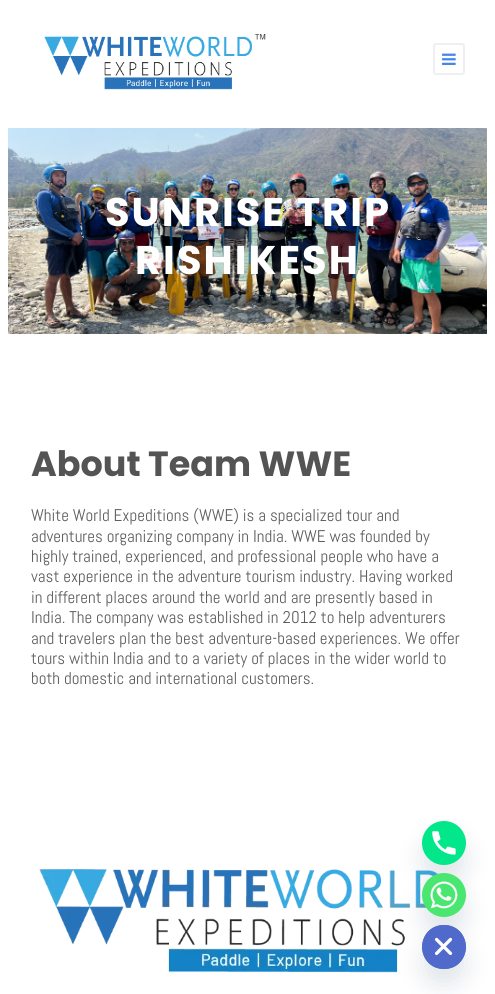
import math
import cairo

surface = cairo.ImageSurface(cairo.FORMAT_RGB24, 495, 994)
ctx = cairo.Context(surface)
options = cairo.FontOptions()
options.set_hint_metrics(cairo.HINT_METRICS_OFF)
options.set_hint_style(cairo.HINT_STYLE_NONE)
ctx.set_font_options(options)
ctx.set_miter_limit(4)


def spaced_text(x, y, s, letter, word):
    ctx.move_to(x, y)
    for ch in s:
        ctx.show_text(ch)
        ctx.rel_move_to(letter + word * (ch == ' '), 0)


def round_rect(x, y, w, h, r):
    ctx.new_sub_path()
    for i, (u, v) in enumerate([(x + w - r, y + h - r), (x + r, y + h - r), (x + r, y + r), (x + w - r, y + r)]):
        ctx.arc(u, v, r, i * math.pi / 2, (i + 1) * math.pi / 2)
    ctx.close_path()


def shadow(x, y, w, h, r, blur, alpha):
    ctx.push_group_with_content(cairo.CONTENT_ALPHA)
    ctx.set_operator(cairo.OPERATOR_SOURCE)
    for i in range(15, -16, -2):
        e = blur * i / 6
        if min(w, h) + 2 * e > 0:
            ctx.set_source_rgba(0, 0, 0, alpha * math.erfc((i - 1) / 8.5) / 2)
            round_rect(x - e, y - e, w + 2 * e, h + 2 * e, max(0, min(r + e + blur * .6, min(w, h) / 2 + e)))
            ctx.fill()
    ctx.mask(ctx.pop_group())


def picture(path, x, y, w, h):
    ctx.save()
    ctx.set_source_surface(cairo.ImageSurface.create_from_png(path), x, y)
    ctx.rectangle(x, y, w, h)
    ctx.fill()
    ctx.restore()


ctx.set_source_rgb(1, 1, 1)
ctx.paint()
picture("img1.png", 44, 34, 222, 56)
round_rect(434, 44, 30, 30, 2)
ctx.set_source_rgb(0.937, 0.937, 0.937)
ctx.stroke()
picture("img2.png", 442, 53, 14, 12)
picture("img3.png", 8, 128, 479, 206)
ctx.select_font_face("Poppins", cairo.FONT_SLANT_NORMAL, cairo.FONT_WEIGHT_BOLD)
ctx.set_font_size(40)
ctx.set_source_rgb(1, 1, 1)
spaced_text(105, 226, "SUNRISE TRIP", 2, 0)
spaced_text(135, 274, "RISHIKESH", 2, 0)
ctx.set_font_size(35)
ctx.set_source_rgb(0.329, 0.329, 0.329)
ctx.move_to(31, 476)
ctx.show_text("About Team WWE")
ctx.select_font_face("Abel")
ctx.set_font_size(17)
ctx.set_source_rgb(0.369, 0.369, 0.369)
ctx.move_to(31, 521)
ctx.show_text("White World Expeditions (WWE) is a specialized tour and")
ctx.move_to(31, 542)
ctx.show_text("adventures organizing company in India. WWE was founded by")
ctx.move_to(31, 562)
ctx.show_text("highly trained, experienced, and professional people who have a")
ctx.move_to(31, 582)
ctx.show_text("vast experience in the adventure tourism industry. Having worked")
ctx.move_to(31, 603)
ctx.show_text("in different places around the world and are presently based in")
ctx.move_to(31, 623)
ctx.show_text("India. The company was established in 2012 to help adventurers")
ctx.move_to(31, 644)
ctx.show_text("and travelers plan the best adventure-based experiences. We offer")
ctx.move_to(31, 664)
ctx.show_text("tours within India and to a variety of places in the wider world to")
ctx.move_to(31, 684)
ctx.show_text("both domestic and international customers.")
picture("img4.png", 39, 869, 399, 104)
ctx.set_source_rgb(0.286, 0.408, 0.494)
shadow(422, 837, 44, 44, 22, 12, 0.16)
picture("img5.png", 422, 821, 44, 44)
shadow(422, 889, 44, 44, 22, 12, 0.16)
picture("img6.png", 422, 873, 44, 44)
shadow(422, 941, 44, 44, 22, 12, 0.16)
ctx.set_source_rgb(0.31, 0.416, 0.792)
ctx.new_path()
ctx.move_to(444, 969)
ctx.curve_to(415, 969, 415, 925, 444, 925)
ctx.curve_to(473, 925, 473, 969, 444, 969)
ctx.close_path()
ctx.fill()
picture("img7.png", 422, 925, 44, 44)
surface.write_to_png("page.png")
